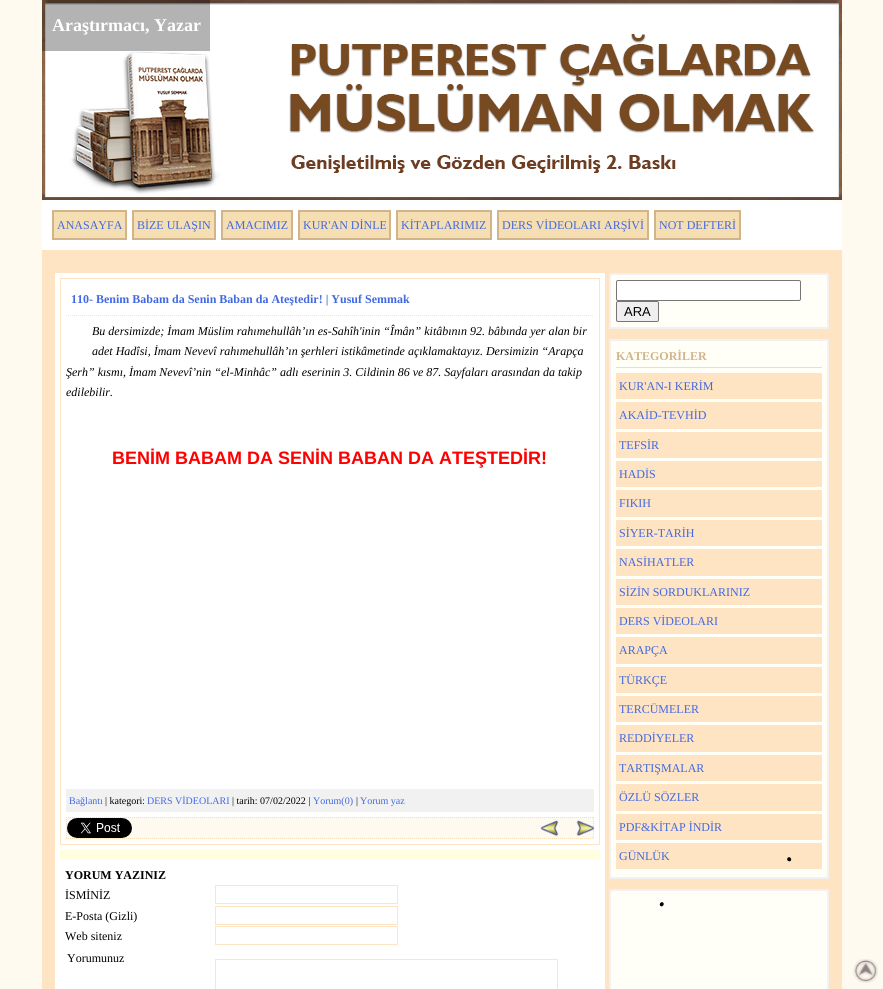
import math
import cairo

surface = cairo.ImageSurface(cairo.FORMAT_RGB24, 883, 989)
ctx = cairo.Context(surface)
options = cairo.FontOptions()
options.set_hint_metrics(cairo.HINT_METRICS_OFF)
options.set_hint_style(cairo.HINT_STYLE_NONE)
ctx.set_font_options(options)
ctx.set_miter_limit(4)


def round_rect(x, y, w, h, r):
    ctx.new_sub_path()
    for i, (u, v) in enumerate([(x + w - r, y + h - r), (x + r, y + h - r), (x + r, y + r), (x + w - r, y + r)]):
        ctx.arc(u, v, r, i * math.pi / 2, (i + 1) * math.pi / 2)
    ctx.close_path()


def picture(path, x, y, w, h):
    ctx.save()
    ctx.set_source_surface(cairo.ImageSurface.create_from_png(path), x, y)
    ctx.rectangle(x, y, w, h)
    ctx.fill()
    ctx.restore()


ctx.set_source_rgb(1, 0.98, 0.941)
ctx.paint()
ctx.set_source_rgb(1, 1, 1)
ctx.rectangle(42, 200, 800, 50)
ctx.fill()
picture("img1.png", 42, 0, 800, 200)
ctx.set_source_rgba(0, 0, 0, 0.3)
ctx.rectangle(42, 0, 168, 51)
ctx.fill()
ctx.select_font_face("Liberation Serif", cairo.FONT_SLANT_NORMAL, cairo.FONT_WEIGHT_BOLD)
ctx.set_font_size(18)
ctx.set_source_rgb(1, 1, 1)
ctx.move_to(52, 31)
ctx.show_text("Araştırmacı, Yazar")
ctx.set_source_rgb(0.961, 0.871, 0.702)
ctx.rectangle(53, 211, 73, 28)
ctx.fill_preserve()
ctx.set_source_rgb(0.824, 0.706, 0.549)
ctx.stroke()
ctx.select_font_face("Liberation Serif")
ctx.set_font_size(12)
ctx.set_source_rgb(0.255, 0.412, 0.882)
ctx.move_to(57, 229)
ctx.show_text("ANASAYFA")
ctx.set_source_rgb(0.961, 0.871, 0.702)
ctx.rectangle(133, 211, 82, 28)
ctx.fill_preserve()
ctx.set_source_rgb(0.824, 0.706, 0.549)
ctx.stroke()
ctx.set_source_rgb(0.255, 0.412, 0.882)
ctx.move_to(137, 229)
ctx.show_text("BİZE ULAŞIN")
ctx.set_source_rgb(0.961, 0.871, 0.702)
ctx.rectangle(222, 211, 70, 28)
ctx.fill_preserve()
ctx.set_source_rgb(0.824, 0.706, 0.549)
ctx.stroke()
ctx.set_source_rgb(0.255, 0.412, 0.882)
ctx.move_to(226, 229)
ctx.show_text("AMACIMIZ")
ctx.set_source_rgb(0.961, 0.871, 0.702)
ctx.rectangle(299, 211, 91, 28)
ctx.fill_preserve()
ctx.set_source_rgb(0.824, 0.706, 0.549)
ctx.stroke()
ctx.set_source_rgb(0.255, 0.412, 0.882)
ctx.move_to(303, 229)
ctx.show_text("KUR'AN DİNLE")
ctx.set_source_rgb(0.961, 0.871, 0.702)
ctx.rectangle(397, 211, 94, 28)
ctx.fill_preserve()
ctx.set_source_rgb(0.824, 0.706, 0.549)
ctx.stroke()
ctx.set_source_rgb(0.255, 0.412, 0.882)
ctx.move_to(401, 229)
ctx.show_text("KİTAPLARIMIZ")
ctx.set_source_rgb(0.961, 0.871, 0.702)
ctx.rectangle(498, 211, 150, 28)
ctx.fill_preserve()
ctx.set_source_rgb(0.824, 0.706, 0.549)
ctx.stroke()
ctx.set_source_rgb(0.255, 0.412, 0.882)
ctx.move_to(502, 229)
ctx.show_text("DERS VİDEOLARI ARŞİVİ")
ctx.set_source_rgb(0.961, 0.871, 0.702)
ctx.rectangle(655, 211, 85, 28)
ctx.fill_preserve()
ctx.set_source_rgb(0.824, 0.706, 0.549)
ctx.stroke()
ctx.set_source_rgb(0.255, 0.412, 0.882)
ctx.move_to(659, 229)
ctx.show_text("NOT DEFTERİ")
ctx.set_source_rgb(1, 0.894, 0.769)
ctx.rectangle(42, 250, 800, 739)
ctx.fill()
ctx.set_source_rgb(1, 1, 1)
ctx.rectangle(55, 273, 550, 716)
ctx.fill()
ctx.rectangle(60.5, 278.5, 539, 566)
ctx.set_source_rgb(1, 0.894, 0.769)
ctx.set_line_width(1)
ctx.stroke()
ctx.new_path()
ctx.move_to(66, 315.5)
ctx.line_to(594, 315.5)
ctx.set_dash([1, 1])
ctx.stroke()
ctx.select_font_face("Liberation Serif", cairo.FONT_SLANT_NORMAL, cairo.FONT_WEIGHT_BOLD)
ctx.set_source_rgb(0.255, 0.412, 0.882)
ctx.move_to(71, 303)
ctx.show_text("110- Benim Babam da Senin Baban da Ateştedir! | Yusuf Semmak")
ctx.select_font_face("Liberation Serif", cairo.FONT_SLANT_ITALIC)
ctx.set_source_rgb(0, 0, 0)
ctx.move_to(92, 335)
ctx.show_text("Bu dersimizde; İmam Müslim rahımehullâh’ın es-Sahîh'inin “Îmân” kitâbının 92. bâbında yer alan bir")
ctx.move_to(92, 355)
ctx.show_text("adet Hadîsi, İmam Nevevî rahımehullâh’ın şerhleri istikâmetinde açıklamaktayız. Dersimizin “Arapça")
ctx.move_to(66, 376)
ctx.show_text("Şerh” kısmı, İmam Nevevî’nin “el-Minhâc” adlı eserinin 3. Cildinin 86 ve 87. Sayfaları arasından da takip")
ctx.move_to(66, 396)
ctx.show_text("edilebilir.")
ctx.select_font_face("Liberation Sans", cairo.FONT_SLANT_NORMAL, cairo.FONT_WEIGHT_BOLD)
ctx.set_font_size(18)
ctx.set_source_rgb(1, 0, 0)
ctx.move_to(112, 464)
ctx.show_text("BENİM BABAM DA SENİN BABAN DA ATEŞTEDİR!")
ctx.set_source_rgb(0.945, 0.945, 0.945)
ctx.rectangle(66, 789, 528, 23)
ctx.fill()
ctx.select_font_face("Liberation Serif")
ctx.set_font_size(10)
ctx.set_source_rgb(0.255, 0.412, 0.882)
ctx.move_to(69, 804)
ctx.show_text("Bağlantı")
ctx.set_source_rgb(0, 0, 0)
ctx.move_to(105, 804)
ctx.show_text("| kategori:")
ctx.set_source_rgb(0.255, 0.412, 0.882)
ctx.move_to(147, 804)
ctx.show_text("DERS VİDEOLARI")
ctx.set_source_rgb(0, 0, 0)
ctx.move_to(232, 804)
ctx.show_text("| tarih: 07/02/2022 |")
ctx.set_source_rgb(0.255, 0.412, 0.882)
ctx.move_to(313, 804)
ctx.show_text("Yorum(0)")
ctx.set_source_rgb(0, 0, 0)
ctx.move_to(356, 804)
ctx.show_text("|")
ctx.set_source_rgb(0.255, 0.412, 0.882)
ctx.move_to(360, 804)
ctx.show_text("Yorum yaz")
ctx.set_source_rgb(1, 0.98, 0.941)
ctx.rectangle(66, 817, 528, 22)
ctx.fill()
ctx.new_path()
ctx.move_to(66, 817.5)
ctx.line_to(594, 817.5)
ctx.set_source_rgb(0.961, 0.871, 0.702)
ctx.stroke()
ctx.new_path()
ctx.move_to(593.5, 817)
ctx.line_to(593.5, 839)
ctx.stroke()
ctx.new_path()
ctx.move_to(66, 838.5)
ctx.line_to(594, 838.5)
ctx.stroke()
ctx.new_path()
ctx.move_to(66.5, 817)
ctx.line_to(66.5, 839)
ctx.stroke()
picture("img2.png", 67, 818, 65, 20)
picture("img3.png", 540, 820, 19, 16)
picture("img4.png", 576, 820, 19, 16)
ctx.set_source_rgb(1, 1, 0.878)
ctx.rectangle(60, 850, 540, 10)
ctx.fill()
ctx.select_font_face("Liberation Serif", cairo.FONT_SLANT_NORMAL, cairo.FONT_WEIGHT_BOLD)
ctx.set_font_size(12)
ctx.set_source_rgb(0, 0, 0)
ctx.move_to(65, 879)
ctx.show_text("YORUM YAZINIZ")
ctx.select_font_face("Liberation Serif")
ctx.move_to(65, 899)
ctx.show_text("İSMİNİZ")
ctx.rectangle(215.5, 885.5, 182, 18)
ctx.set_source_rgb(1, 0.894, 0.769)
ctx.set_dash([])
ctx.stroke()
ctx.set_source_rgb(0, 0, 0)
ctx.move_to(65, 920)
ctx.show_text("E-Posta (Gizli)")
ctx.rectangle(215.5, 906.5, 182, 18)
ctx.set_source_rgb(1, 0.894, 0.769)
ctx.stroke()
ctx.set_source_rgb(0, 0, 0)
ctx.move_to(65, 940)
ctx.show_text("Web siteniz")
ctx.rectangle(215.5, 926.5, 182, 18)
ctx.set_source_rgb(1, 0.894, 0.769)
ctx.stroke()
ctx.set_source_rgb(0, 0, 0)
ctx.move_to(67, 962)
ctx.show_text("Yorumunuz")
ctx.rectangle(215.5, 959.5, 342, 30)
ctx.set_source_rgb(1, 0.894, 0.769)
ctx.stroke()
ctx.set_source_rgb(1, 1, 0.969)
ctx.rectangle(610, 274, 218, 54)
ctx.fill_preserve()
ctx.set_source_rgb(0.945, 0.945, 0.945)
ctx.set_line_width(2)
ctx.stroke()
ctx.set_source_rgb(1, 1, 1)
round_rect(616.5, 280.5, 184, 20, 1.5)
ctx.fill_preserve()
ctx.set_source_rgb(0.463, 0.463, 0.463)
ctx.set_line_width(1)
ctx.stroke()
ctx.set_source_rgb(0.937, 0.937, 0.937)
round_rect(616.5, 301.5, 42, 20, 1.5)
ctx.fill_preserve()
ctx.set_source_rgb(0.463, 0.463, 0.463)
ctx.stroke()
ctx.select_font_face("Liberation Sans")
ctx.set_font_size(13)
ctx.set_source_rgb(0, 0, 0)
ctx.move_to(624, 316)
ctx.show_text("ARA")
ctx.set_source_rgb(1, 1, 0.969)
ctx.rectangle(610, 340, 218, 538)
ctx.fill_preserve()
ctx.set_source_rgb(0.945, 0.945, 0.945)
ctx.set_line_width(2)
ctx.stroke()
ctx.set_source_rgb(0.961, 0.871, 0.702)
ctx.rectangle(616, 367, 206, 1)
ctx.fill()
ctx.select_font_face("Liberation Serif", cairo.FONT_SLANT_NORMAL, cairo.FONT_WEIGHT_BOLD)
ctx.set_font_size(12)
ctx.set_source_rgb(0.824, 0.706, 0.549)
ctx.move_to(616, 360)
ctx.show_text("KATEGORİLER")
ctx.set_source_rgb(1, 0.894, 0.769)
ctx.rectangle(616, 373, 206, 26)
ctx.fill()
ctx.select_font_face("Liberation Serif")
ctx.set_source_rgb(0.255, 0.412, 0.882)
ctx.move_to(619, 390)
ctx.show_text("KUR'AN-I KERİM")
ctx.set_source_rgb(1, 0.894, 0.769)
ctx.rectangle(616, 402, 206, 27)
ctx.fill()
ctx.set_source_rgb(0.255, 0.412, 0.882)
ctx.move_to(619, 419)
ctx.show_text("AKAİD-TEVHİD")
ctx.set_source_rgb(1, 0.894, 0.769)
ctx.rectangle(616, 432, 206, 26)
ctx.fill()
ctx.set_source_rgb(0.255, 0.412, 0.882)
ctx.move_to(619, 449)
ctx.show_text("TEFSİR")
ctx.set_source_rgb(1, 0.894, 0.769)
ctx.rectangle(616, 461, 206, 26)
ctx.fill()
ctx.set_source_rgb(0.255, 0.412, 0.882)
ctx.move_to(619, 478)
ctx.show_text("HADİS")
ctx.set_source_rgb(1, 0.894, 0.769)
ctx.rectangle(616, 490, 206, 27)
ctx.fill()
ctx.set_source_rgb(0.255, 0.412, 0.882)
ctx.move_to(619, 507)
ctx.show_text("FIKIH")
ctx.set_source_rgb(1, 0.894, 0.769)
ctx.rectangle(616, 520, 206, 26)
ctx.fill()
ctx.set_source_rgb(0.255, 0.412, 0.882)
ctx.move_to(619, 537)
ctx.show_text("SİYER-TARİH")
ctx.set_source_rgb(1, 0.894, 0.769)
ctx.rectangle(616, 549, 206, 27)
ctx.fill()
ctx.set_source_rgb(0.255, 0.412, 0.882)
ctx.move_to(619, 566)
ctx.show_text("NASİHATLER")
ctx.set_source_rgb(1, 0.894, 0.769)
ctx.rectangle(616, 579, 206, 26)
ctx.fill()
ctx.set_source_rgb(0.255, 0.412, 0.882)
ctx.move_to(619, 596)
ctx.show_text("SİZİN SORDUKLARINIZ")
ctx.set_source_rgb(1, 0.894, 0.769)
ctx.rectangle(616, 608, 206, 26)
ctx.fill()
ctx.set_source_rgb(0.255, 0.412, 0.882)
ctx.move_to(619, 625)
ctx.show_text("DERS VİDEOLARI")
ctx.set_source_rgb(1, 0.894, 0.769)
ctx.rectangle(616, 637, 206, 27)
ctx.fill()
ctx.set_source_rgb(0.255, 0.412, 0.882)
ctx.move_to(619, 654)
ctx.show_text("ARAPÇA")
ctx.set_source_rgb(1, 0.894, 0.769)
ctx.rectangle(616, 667, 206, 26)
ctx.fill()
ctx.set_source_rgb(0.255, 0.412, 0.882)
ctx.move_to(619, 684)
ctx.show_text("TÜRKÇE")
ctx.set_source_rgb(1, 0.894, 0.769)
ctx.rectangle(616, 696, 206, 26)
ctx.fill()
ctx.set_source_rgb(0.255, 0.412, 0.882)
ctx.move_to(619, 713)
ctx.show_text("TERCÜMELER")
ctx.set_source_rgb(1, 0.894, 0.769)
ctx.rectangle(616, 725, 206, 27)
ctx.fill()
ctx.set_source_rgb(0.255, 0.412, 0.882)
ctx.move_to(619, 742)
ctx.show_text("REDDİYELER")
ctx.set_source_rgb(1, 0.894, 0.769)
ctx.rectangle(616, 755, 206, 26)
ctx.fill()
ctx.set_source_rgb(0.255, 0.412, 0.882)
ctx.move_to(619, 772)
ctx.show_text("TARTIŞMALAR")
ctx.set_source_rgb(1, 0.894, 0.769)
ctx.rectangle(616, 784, 206, 27)
ctx.fill()
ctx.set_source_rgb(0.255, 0.412, 0.882)
ctx.move_to(619, 801)
ctx.show_text("ÖZLÜ SÖZLER")
ctx.set_source_rgb(1, 0.894, 0.769)
ctx.rectangle(616, 814, 206, 26)
ctx.fill()
ctx.set_source_rgb(0.255, 0.412, 0.882)
ctx.move_to(619, 831)
ctx.show_text("PDF&KİTAP İNDİR")
ctx.set_source_rgb(1, 0.894, 0.769)
ctx.rectangle(616, 843, 206, 26)
ctx.fill()
ctx.set_source_rgb(0.255, 0.412, 0.882)
ctx.move_to(619, 860)
ctx.show_text("GÜNLÜK")
ctx.set_source_rgb(1, 1, 0.969)
ctx.rectangle(610, 890, 218, 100)
ctx.fill_preserve()
ctx.set_source_rgb(0.945, 0.945, 0.945)
ctx.stroke()
ctx.set_source_rgb(0, 0, 0)
ctx.new_path()
ctx.move_to(791, 860.5)
ctx.curve_to(789.5, 862.5, 786, 860.5, 787.5, 858)
ctx.curve_to(789, 856, 792, 858, 791, 860.5)
ctx.close_path()
ctx.fill()
ctx.new_path()
ctx.move_to(663, 902.5)
ctx.curve_to(665, 904, 662.5, 907.5, 660.5, 906)
ctx.curve_to(658.5, 904.5, 661, 901, 663, 902.5)
ctx.close_path()
ctx.fill()
picture("img5.png", 853, 959, 25, 24)
surface.write_to_png("page.png")
